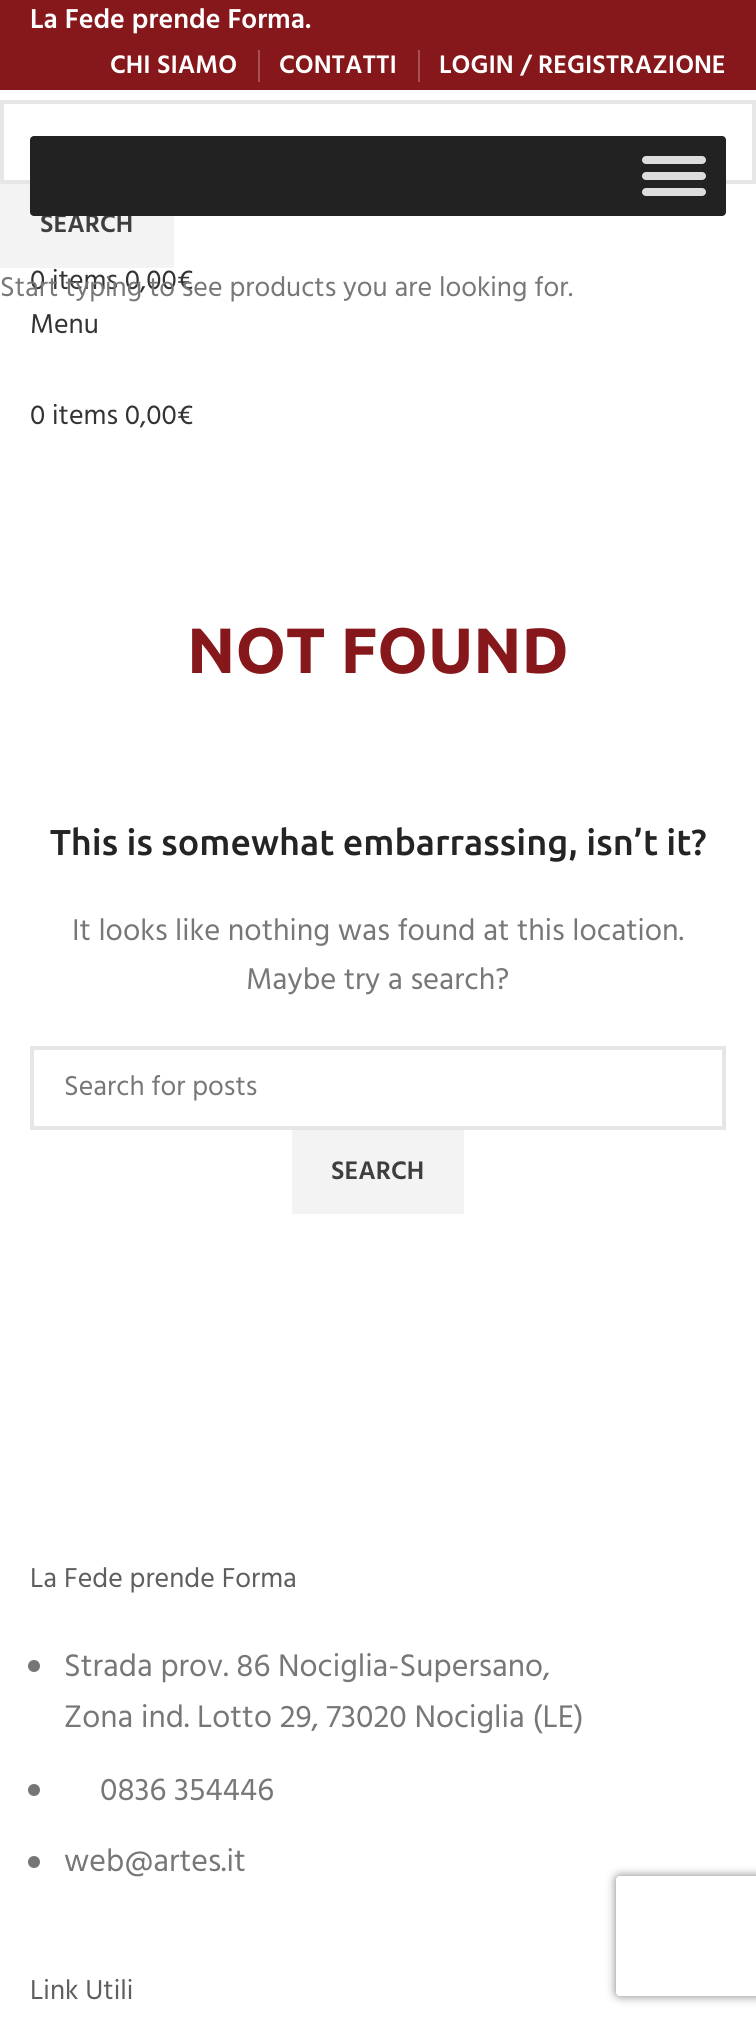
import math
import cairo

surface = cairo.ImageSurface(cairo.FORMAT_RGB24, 756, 2024)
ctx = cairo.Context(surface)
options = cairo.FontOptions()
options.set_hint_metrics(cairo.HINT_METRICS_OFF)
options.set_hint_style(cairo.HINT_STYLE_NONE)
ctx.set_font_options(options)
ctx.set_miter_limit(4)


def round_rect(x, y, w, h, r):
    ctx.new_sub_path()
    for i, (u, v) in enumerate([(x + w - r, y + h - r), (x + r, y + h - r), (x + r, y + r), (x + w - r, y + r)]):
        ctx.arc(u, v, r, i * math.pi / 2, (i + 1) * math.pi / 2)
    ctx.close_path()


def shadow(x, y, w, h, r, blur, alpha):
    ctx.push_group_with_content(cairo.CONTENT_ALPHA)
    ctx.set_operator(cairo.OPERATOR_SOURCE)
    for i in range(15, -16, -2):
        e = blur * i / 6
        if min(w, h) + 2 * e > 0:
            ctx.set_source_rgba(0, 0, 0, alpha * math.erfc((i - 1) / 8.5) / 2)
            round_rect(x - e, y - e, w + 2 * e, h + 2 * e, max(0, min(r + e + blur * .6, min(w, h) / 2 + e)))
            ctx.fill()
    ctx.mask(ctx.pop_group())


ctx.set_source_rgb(1, 1, 1)
ctx.paint()
ctx.set_source_rgb(0.525, 0.09, 0.102)
ctx.rectangle(0, 0, 756, 90)
ctx.fill()
ctx.select_font_face("Hind SemiBold")
ctx.set_font_size(28)
ctx.set_source_rgb(1, 1, 1)
ctx.move_to(30, 28)
ctx.show_text("La Fede prende Forma.")
ctx.set_font_size(26)
ctx.move_to(110, 73)
ctx.show_text("CHI SIAMO")
ctx.set_source_rgb(0.643, 0.318, 0.325)
ctx.rectangle(258, 50, 2, 32)
ctx.fill()
ctx.set_source_rgb(1, 1, 1)
ctx.move_to(279, 73)
ctx.show_text("CONTATTI")
ctx.set_source_rgb(0.643, 0.318, 0.325)
ctx.rectangle(418, 50, 2, 32)
ctx.fill()
ctx.set_source_rgb(1, 1, 1)
ctx.move_to(439, 73)
ctx.show_text("LOGIN / REGISTRAZIONE")
ctx.rectangle(2, 102, 752, 80)
ctx.set_source_rgb(0.902, 0.902, 0.902)
ctx.set_line_width(4)
ctx.stroke()
ctx.set_source_rgb(0.953, 0.953, 0.953)
ctx.rectangle(0, 184, 174, 84)
ctx.fill()
ctx.set_source_rgb(0.243, 0.243, 0.243)
ctx.move_to(40, 232)
ctx.show_text("SEARCH")
ctx.set_source_rgb(0.133, 0.133, 0.133)
round_rect(30, 136, 696, 80, 4)
ctx.fill()
ctx.set_source_rgb(0.867, 0.867, 0.867)
round_rect(642, 156, 64, 8, 4)
ctx.fill()
round_rect(642, 172, 64, 8, 4)
ctx.fill()
round_rect(642, 188, 64, 8, 4)
ctx.fill()
ctx.select_font_face("Hind")
ctx.set_font_size(28)
ctx.set_source_rgb(0.2, 0.2, 0.2)
ctx.move_to(30, 289)
ctx.show_text("0 items 0,00€")
ctx.move_to(30, 333)
ctx.show_text("Menu")
ctx.move_to(30, 424)
ctx.show_text("0 items 0,00€")
ctx.select_font_face("Ubuntu", cairo.FONT_SLANT_NORMAL, cairo.FONT_WEIGHT_BOLD)
ctx.set_font_size(64)
ctx.set_source_rgb(0.525, 0.09, 0.102)
ctx.move_to(187, 673)
ctx.show_text("NOT FOUND")
ctx.select_font_face("Ubuntu Medium")
ctx.set_font_size(36)
ctx.set_source_rgb(0.141, 0.141, 0.141)
ctx.move_to(50, 855)
ctx.show_text("This is somewhat embarrassing, isn’t it?")
ctx.select_font_face("Hind")
ctx.set_font_size(30.75)
ctx.set_source_rgb(0.467, 0.467, 0.467)
ctx.move_to(72, 940)
ctx.show_text("It looks like nothing was found at this location.")
ctx.move_to(246, 989)
ctx.show_text("Maybe try a search?")
ctx.rectangle(32, 1048, 692, 80)
ctx.set_source_rgb(0.902, 0.902, 0.902)
ctx.stroke()
ctx.set_font_size(28)
ctx.set_source_rgb(0.467, 0.467, 0.467)
ctx.move_to(64, 1095)
ctx.show_text("Search for posts")
ctx.set_source_rgb(0.953, 0.953, 0.953)
ctx.rectangle(292, 1130, 172, 84)
ctx.fill()
ctx.select_font_face("Hind SemiBold")
ctx.set_font_size(26)
ctx.set_source_rgb(0.243, 0.243, 0.243)
ctx.move_to(331, 1179)
ctx.show_text("SEARCH")
ctx.select_font_face("Hind")
ctx.set_font_size(28)
ctx.set_source_rgb(0.369, 0.369, 0.369)
ctx.move_to(30, 1587)
ctx.show_text("La Fede prende Forma")
ctx.set_source_rgb(0.463, 0.463, 0.463)
ctx.new_path()
ctx.arc(34, 1666, 6, 0, 2 * math.pi)
ctx.fill()
ctx.set_font_size(32)
ctx.set_source_rgb(0.467, 0.467, 0.467)
ctx.move_to(64, 1676)
ctx.show_text("Strada prov. 86 Nociglia-Supersano,")
ctx.move_to(64, 1727)
ctx.show_text("Zona ind. Lotto 29, 73020 Nociglia (LE)")
ctx.set_source_rgb(0.463, 0.463, 0.463)
ctx.new_path()
ctx.arc(34, 1790, 6, 0, 2 * math.pi)
ctx.fill()
ctx.set_source_rgb(0.467, 0.467, 0.467)
ctx.move_to(100, 1800)
ctx.show_text("0836 354446")
ctx.set_source_rgb(0.463, 0.463, 0.463)
ctx.new_path()
ctx.arc(34, 1862, 6, 0, 2 * math.pi)
ctx.fill()
ctx.set_source_rgb(0.467, 0.467, 0.467)
ctx.move_to(64, 1871)
ctx.show_text("web@artes.it")
ctx.set_font_size(28)
ctx.set_source_rgb(0.369, 0.369, 0.369)
ctx.move_to(30, 1999)
ctx.show_text("Link Utili")
ctx.set_source_rgb(0.467, 0.467, 0.467)
ctx.move_to(0, 296)
ctx.show_text("Start typing to see products you are looking for.")
ctx.save()
ctx.set_fill_rule(cairo.FILL_RULE_EVEN_ODD)
ctx.new_path()
ctx.move_to(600, 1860)
ctx.line_to(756, 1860)
ctx.line_to(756, 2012)
ctx.line_to(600, 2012)
ctx.close_path()
ctx.move_to(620, 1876)
ctx.line_to(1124, 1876)
ctx.curve_to(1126, 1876, 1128, 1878, 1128, 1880)
ctx.line_to(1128, 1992)
ctx.curve_to(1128, 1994, 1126, 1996, 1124, 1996)
ctx.line_to(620, 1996)
ctx.curve_to(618, 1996, 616, 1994, 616, 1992)
ctx.line_to(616, 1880)
ctx.curve_to(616, 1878, 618, 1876, 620, 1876)
ctx.close_path()
ctx.clip()
ctx.set_source_rgb(0.502, 0.502, 0.502)
shadow(616, 1876, 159, 120, 4, 5, 1)
ctx.restore()
surface.write_to_png("page.png")
